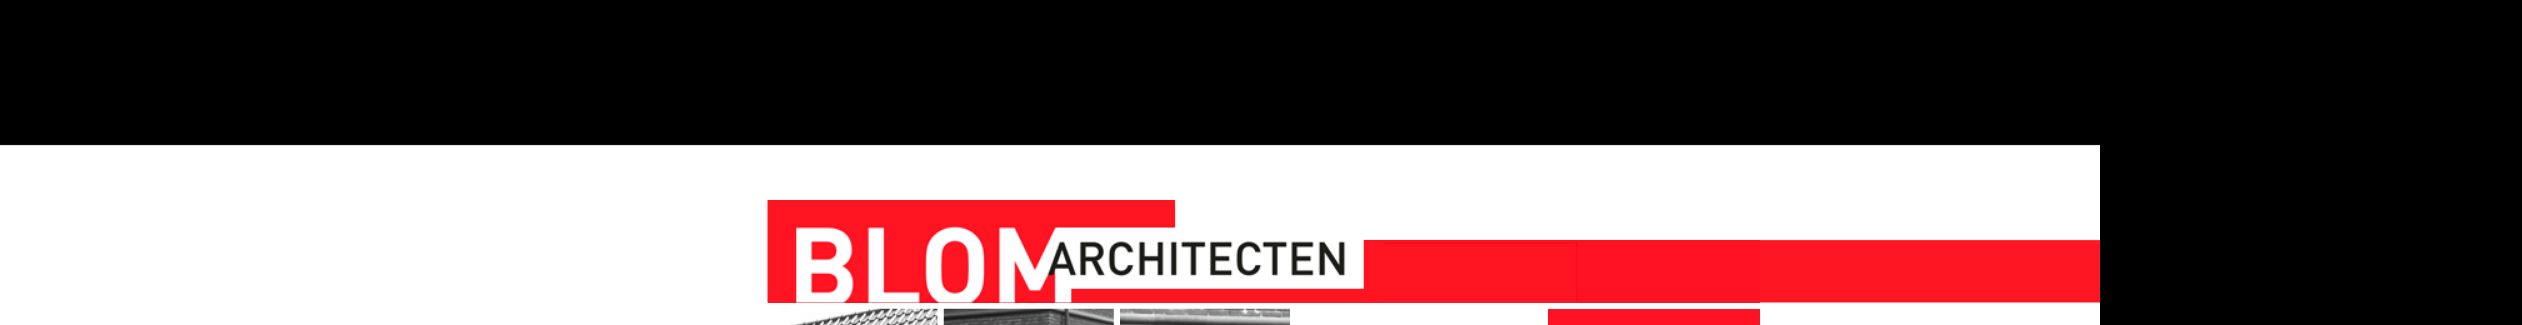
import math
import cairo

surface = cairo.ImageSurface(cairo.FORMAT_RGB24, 2522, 325)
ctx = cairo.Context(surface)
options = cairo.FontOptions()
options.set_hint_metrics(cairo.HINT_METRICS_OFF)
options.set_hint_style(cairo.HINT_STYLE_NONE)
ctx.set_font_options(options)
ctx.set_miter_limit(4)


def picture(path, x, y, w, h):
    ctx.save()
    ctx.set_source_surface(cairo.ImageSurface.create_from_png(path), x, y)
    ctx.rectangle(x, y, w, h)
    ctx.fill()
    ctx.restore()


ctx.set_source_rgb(0, 0, 0)
ctx.paint()
picture("img1.png", 0, 144, 2100, 181)
ctx.set_source_rgb(1, 0.078, 0.133)
ctx.rectangle(768, 240, 992, 63)
ctx.fill()
picture("img2.png", 767, 200, 811, 103)
picture("img3.png", 790, 308, 148, 17)
picture("img4.png", 943, 308, 171, 17)
picture("img5.png", 1120, 308, 170, 17)
ctx.rectangle(1548, 309, 212, 16)
ctx.fill()
surface.write_to_png("page.png")
